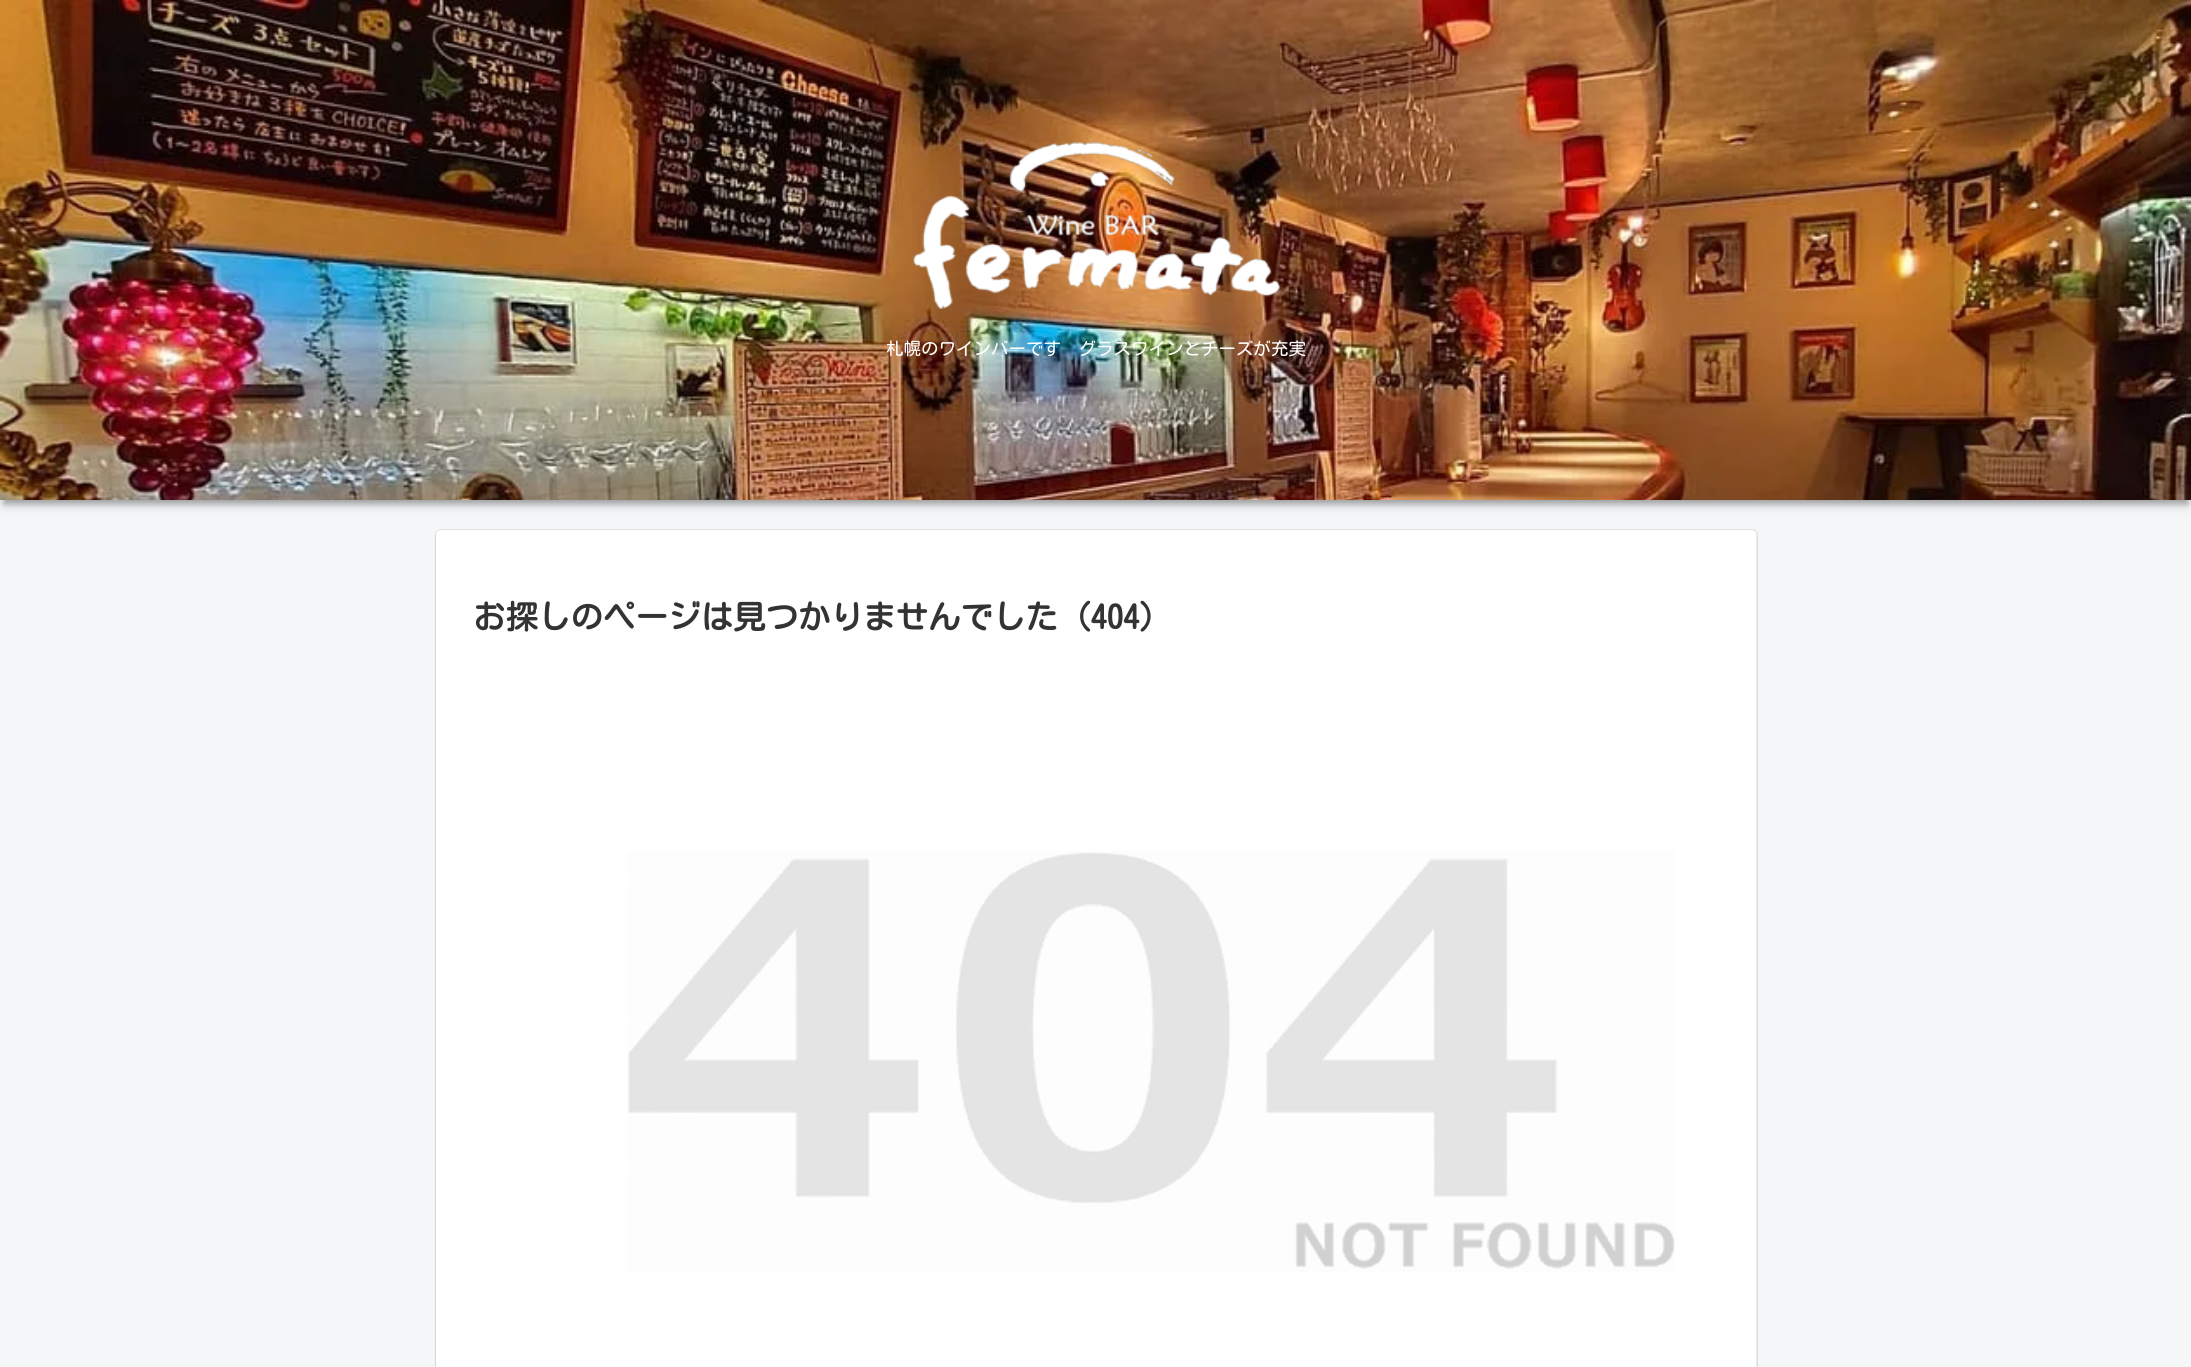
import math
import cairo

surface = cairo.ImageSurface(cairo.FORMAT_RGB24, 2191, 1367)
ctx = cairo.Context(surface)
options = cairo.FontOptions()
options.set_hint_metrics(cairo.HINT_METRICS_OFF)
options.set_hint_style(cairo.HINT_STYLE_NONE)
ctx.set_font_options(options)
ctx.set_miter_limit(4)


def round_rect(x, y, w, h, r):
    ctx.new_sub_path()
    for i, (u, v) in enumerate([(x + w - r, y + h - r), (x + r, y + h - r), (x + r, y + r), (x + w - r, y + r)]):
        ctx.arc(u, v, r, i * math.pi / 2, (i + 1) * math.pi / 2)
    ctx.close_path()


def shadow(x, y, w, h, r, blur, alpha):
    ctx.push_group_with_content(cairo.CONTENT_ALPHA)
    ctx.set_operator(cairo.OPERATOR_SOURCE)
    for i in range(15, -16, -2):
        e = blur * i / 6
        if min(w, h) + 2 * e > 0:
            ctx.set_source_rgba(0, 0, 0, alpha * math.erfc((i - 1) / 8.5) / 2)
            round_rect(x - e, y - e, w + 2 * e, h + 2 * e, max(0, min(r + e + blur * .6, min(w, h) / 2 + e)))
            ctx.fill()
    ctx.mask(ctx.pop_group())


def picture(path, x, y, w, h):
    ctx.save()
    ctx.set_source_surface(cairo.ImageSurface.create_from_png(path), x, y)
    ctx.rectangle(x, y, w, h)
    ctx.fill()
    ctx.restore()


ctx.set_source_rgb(0.957, 0.961, 0.969)
ctx.paint()
ctx.set_source_rgb(0, 0, 0)
shadow(4, 11, 2184, 493, 0, 6, 0.18)
shadow(4, 11, 2184, 493, 0, 3, 0.24)
picture("img1.png", 0, 0, 2191, 500)
picture("img2.png", 912, 141, 369, 169)
ctx.select_font_face("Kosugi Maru")
ctx.set_font_size(17.5)
ctx.set_source_rgb(1, 1, 1)
ctx.move_to(886, 355)
ctx.show_text("札幌のワインバーです　グラスワインとチーズが充実")
round_rect(435.5, 529.5, 1322, 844, 5.5)
ctx.set_source_rgb(0.878, 0.882, 0.89)
ctx.set_line_width(1)
ctx.stroke()
ctx.set_source_rgb(0, 0, 0)
shadow(436, 533, 1320, 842, 5, 1, 0.16)
ctx.set_source_rgb(1, 1, 1)
round_rect(436, 530, 1320, 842, 5)
ctx.fill()
ctx.select_font_face("Kosugi Maru", cairo.FONT_SLANT_NORMAL, cairo.FONT_WEIGHT_BOLD)
ctx.set_font_size(32.5)
ctx.set_source_rgb(0.2, 0.2, 0.2)
ctx.move_to(473, 629)
ctx.show_text("お探しのページは見つかりませんでした (404)")
picture("img3.png", 627, 851, 1048, 421)
surface.write_to_png("page.png")
